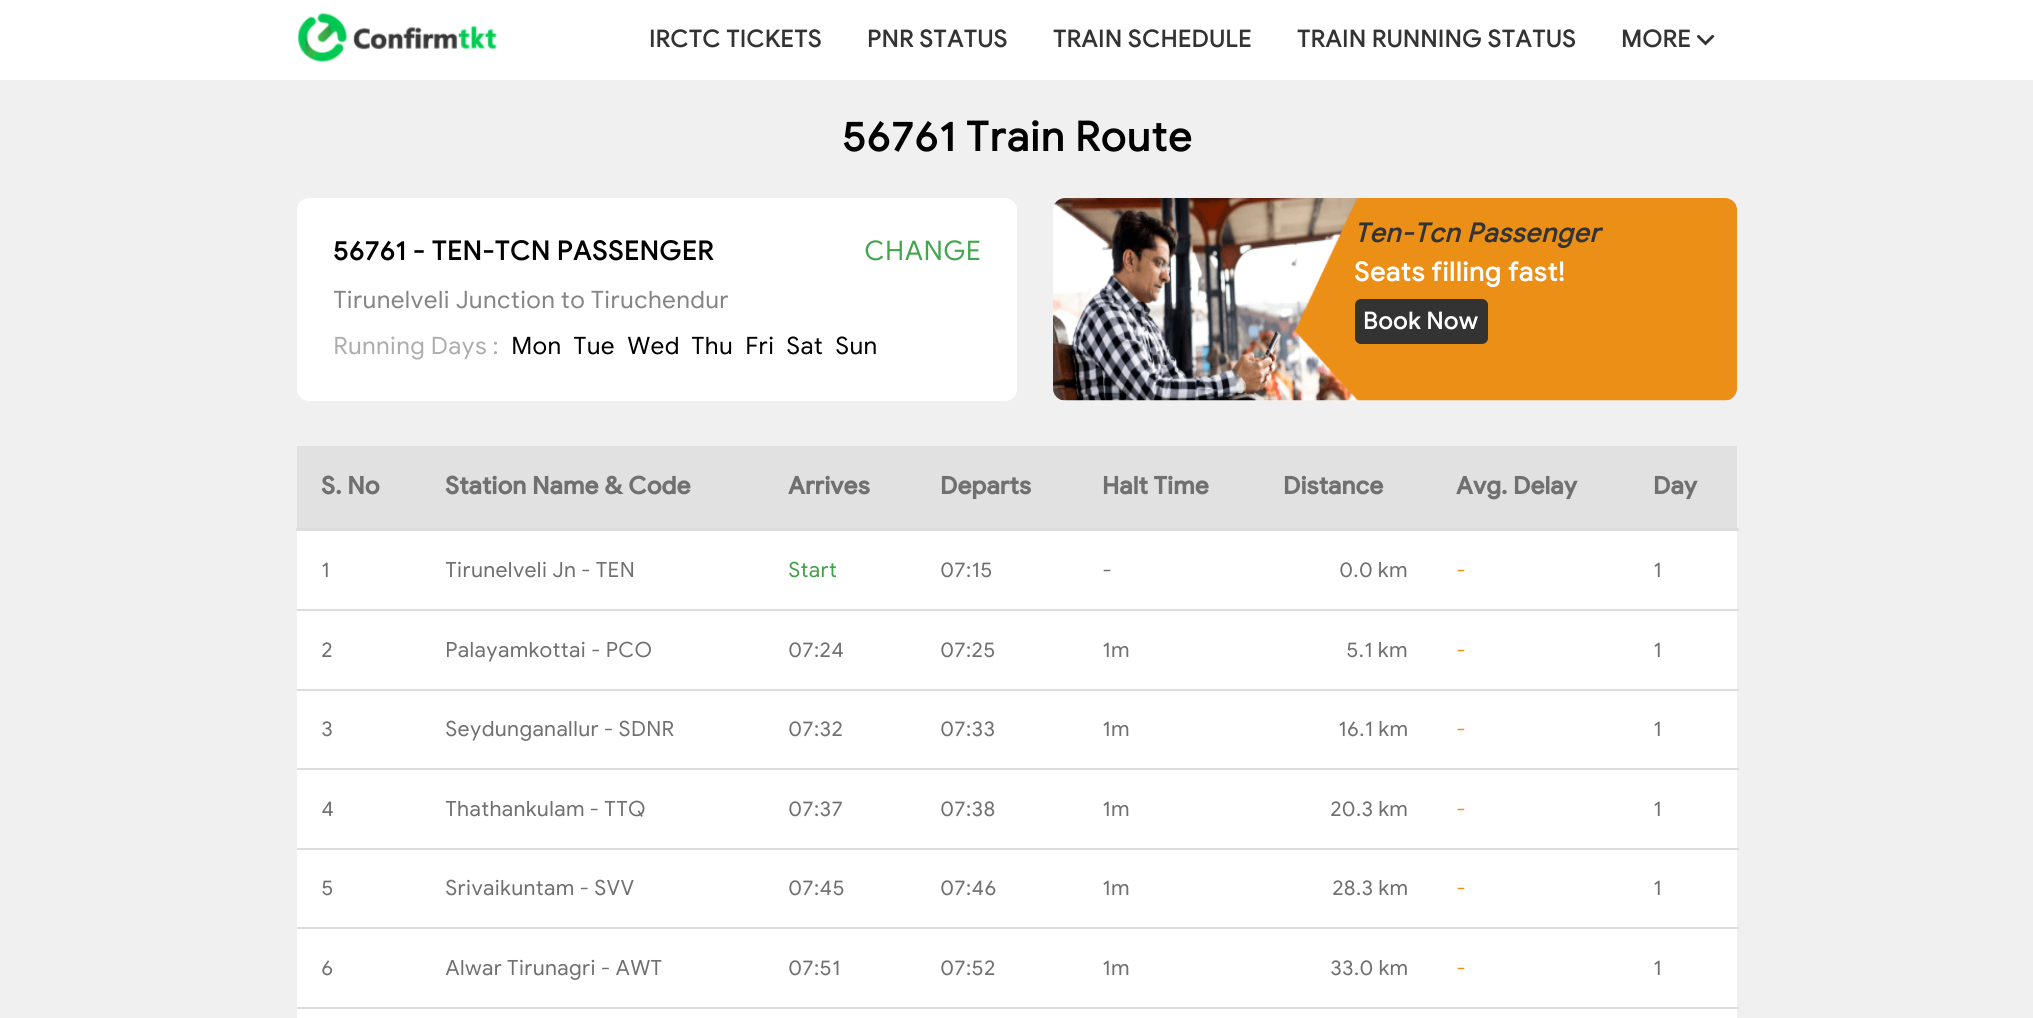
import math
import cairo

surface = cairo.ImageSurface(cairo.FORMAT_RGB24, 2033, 1018)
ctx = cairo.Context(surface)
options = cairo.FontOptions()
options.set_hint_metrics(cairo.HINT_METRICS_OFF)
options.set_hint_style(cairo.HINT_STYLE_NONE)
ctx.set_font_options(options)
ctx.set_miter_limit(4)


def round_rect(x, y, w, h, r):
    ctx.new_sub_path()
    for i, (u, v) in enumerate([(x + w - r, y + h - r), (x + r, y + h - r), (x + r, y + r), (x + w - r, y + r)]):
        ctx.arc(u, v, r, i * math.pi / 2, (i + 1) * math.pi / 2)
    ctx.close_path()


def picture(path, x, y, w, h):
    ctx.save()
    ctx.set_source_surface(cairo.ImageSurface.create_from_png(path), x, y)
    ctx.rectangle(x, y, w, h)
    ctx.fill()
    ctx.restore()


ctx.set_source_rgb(1, 1, 1)
ctx.paint()
picture("img1.png", 297, 13, 200, 49)
ctx.select_font_face("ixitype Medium")
ctx.set_font_size(24)
ctx.set_source_rgb(0.2, 0.2, 0.2)
ctx.move_to(649, 47)
ctx.show_text("IRCTC TICKETS")
ctx.move_to(867, 47)
ctx.show_text("PNR STATUS")
ctx.move_to(1053, 47)
ctx.show_text("TRAIN SCHEDULE")
ctx.move_to(1297, 47)
ctx.show_text("TRAIN RUNNING STATUS")
ctx.move_to(1621, 47)
ctx.show_text("MORE")
ctx.save()
ctx.rectangle(1697, 35, 18, 12)
ctx.clip()
ctx.set_fill_rule(cairo.FILL_RULE_EVEN_ODD)
ctx.new_path()
ctx.move_to(1712.5, 34.5)
ctx.line_to(1714.5, 36.5)
ctx.line_to(1705.5, 45.5)
ctx.line_to(1696.5, 36.5)
ctx.line_to(1698.5, 34.5)
ctx.line_to(1705.5, 41.5)
ctx.close_path()
ctx.fill()
ctx.restore()
ctx.set_source_rgb(0.941, 0.941, 0.941)
ctx.rectangle(0, 80, 2033, 938)
ctx.fill()
ctx.set_font_size(42)
ctx.set_source_rgb(0, 0, 0)
ctx.move_to(842, 151)
ctx.show_text("56761 Train Route")
ctx.set_source_rgb(1, 1, 1)
round_rect(297, 198, 720, 203, 12)
ctx.fill()
ctx.set_font_size(27)
ctx.set_source_rgb(0, 0, 0)
ctx.move_to(333, 260)
ctx.show_text("56761 - TEN-TCN PASSENGER")
ctx.select_font_face("ixitype")
ctx.set_source_rgb(0.263, 0.651, 0.306)
ctx.move_to(864, 260)
ctx.show_text("CHANGE")
ctx.set_font_size(24)
ctx.set_source_rgb(0.522, 0.522, 0.522)
ctx.move_to(333, 308)
ctx.show_text("Tirunelveli Junction to Tiruchendur")
ctx.set_source_rgb(0.678, 0.678, 0.678)
ctx.move_to(333, 354)
ctx.show_text("Running Days :")
ctx.set_source_rgb(0, 0, 0)
ctx.move_to(511, 354)
ctx.show_text("Mon")
ctx.move_to(573, 354)
ctx.show_text("Tue")
ctx.move_to(627, 354)
ctx.show_text("Wed")
ctx.move_to(691, 354)
ctx.show_text("Thu")
ctx.move_to(745, 354)
ctx.show_text("Fri")
ctx.move_to(786, 354)
ctx.show_text("Sat")
ctx.move_to(835, 354)
ctx.show_text("Sun")
picture("img2.png", 1053, 198, 684, 203)
ctx.select_font_face("ixitype Medium", cairo.FONT_SLANT_ITALIC)
ctx.set_font_size(27)
ctx.set_source_rgb(0.2, 0.2, 0.2)
ctx.move_to(1354, 242)
ctx.show_text("Ten-Tcn Passenger")
ctx.select_font_face("ixitype Medium")
ctx.set_source_rgb(1, 1, 1)
ctx.move_to(1354, 281)
ctx.show_text("Seats filling fast!")
ctx.set_source_rgb(0.2, 0.2, 0.2)
round_rect(1355, 299, 133, 45, 6)
ctx.fill()
ctx.set_font_size(24)
ctx.set_source_rgb(1, 1, 1)
ctx.move_to(1363, 329)
ctx.show_text("Book Now")
ctx.rectangle(297, 531, 1440, 487)
ctx.fill()
ctx.set_source_rgb(0.882, 0.882, 0.882)
ctx.rectangle(297, 446, 1440, 82)
ctx.fill()
ctx.select_font_face("ixitype", cairo.FONT_SLANT_NORMAL, cairo.FONT_WEIGHT_BOLD)
ctx.set_source_rgb(0.439, 0.439, 0.439)
ctx.move_to(321, 494)
ctx.show_text("S. No")
ctx.move_to(445, 494)
ctx.show_text("Station Name & Code")
ctx.move_to(788, 494)
ctx.show_text("Arrives")
ctx.move_to(940, 494)
ctx.show_text("Departs")
ctx.move_to(1102, 494)
ctx.show_text("Halt Time")
ctx.move_to(1283, 494)
ctx.show_text("Distance")
ctx.move_to(1456, 494)
ctx.show_text("Avg. Delay")
ctx.set_source_rgb(0.867, 0.867, 0.867)
ctx.rectangle(296, 528, 1443, 3)
ctx.fill()
ctx.set_source_rgb(0.439, 0.439, 0.439)
ctx.move_to(1653, 494)
ctx.show_text("Day")
ctx.select_font_face("ixitype")
ctx.set_font_size(21)
ctx.move_to(321, 577)
ctx.show_text("1")
ctx.move_to(445, 577)
ctx.show_text("Tirunelveli Jn - TEN")
ctx.set_source_rgb(0.259, 0.627, 0.278)
ctx.move_to(788, 577)
ctx.show_text("Start")
ctx.set_source_rgb(0.439, 0.439, 0.439)
ctx.move_to(940, 577)
ctx.show_text("07:15")
ctx.move_to(1102, 577)
ctx.show_text("-")
ctx.move_to(1339, 577)
ctx.show_text("0.0 km")
ctx.set_source_rgb(0.922, 0.561, 0.09)
ctx.move_to(1456, 577)
ctx.show_text("-")
ctx.set_source_rgb(0.439, 0.439, 0.439)
ctx.move_to(1653, 577)
ctx.show_text("1")
ctx.move_to(321, 657)
ctx.show_text("2")
ctx.move_to(445, 657)
ctx.show_text("Palayamkottai - PCO")
ctx.move_to(788, 657)
ctx.show_text("07:24")
ctx.move_to(940, 657)
ctx.show_text("07:25")
ctx.move_to(1102, 657)
ctx.show_text("1m")
ctx.move_to(1346, 657)
ctx.show_text("5.1 km")
ctx.set_source_rgb(0.922, 0.561, 0.09)
ctx.move_to(1456, 657)
ctx.show_text("-")
ctx.set_source_rgb(0.867, 0.867, 0.867)
ctx.rectangle(297, 609, 1442, 2)
ctx.fill()
ctx.set_source_rgb(0.439, 0.439, 0.439)
ctx.move_to(1653, 657)
ctx.show_text("1")
ctx.move_to(321, 736)
ctx.show_text("3")
ctx.move_to(445, 736)
ctx.show_text("Seydunganallur - SDNR")
ctx.move_to(788, 736)
ctx.show_text("07:32")
ctx.move_to(940, 736)
ctx.show_text("07:33")
ctx.move_to(1102, 736)
ctx.show_text("1m")
ctx.move_to(1338, 736)
ctx.show_text("16.1 km")
ctx.set_source_rgb(0.922, 0.561, 0.09)
ctx.move_to(1456, 736)
ctx.show_text("-")
ctx.set_source_rgb(0.867, 0.867, 0.867)
ctx.rectangle(297, 689, 1442, 2)
ctx.fill()
ctx.set_source_rgb(0.439, 0.439, 0.439)
ctx.move_to(1653, 736)
ctx.show_text("1")
ctx.move_to(321, 816)
ctx.show_text("4")
ctx.move_to(445, 816)
ctx.show_text("Thathankulam - TTQ")
ctx.move_to(788, 816)
ctx.show_text("07:37")
ctx.move_to(940, 816)
ctx.show_text("07:38")
ctx.move_to(1102, 816)
ctx.show_text("1m")
ctx.move_to(1330, 816)
ctx.show_text("20.3 km")
ctx.set_source_rgb(0.922, 0.561, 0.09)
ctx.move_to(1456, 816)
ctx.show_text("-")
ctx.set_source_rgb(0.867, 0.867, 0.867)
ctx.rectangle(297, 768, 1442, 2)
ctx.fill()
ctx.set_source_rgb(0.439, 0.439, 0.439)
ctx.move_to(1653, 816)
ctx.show_text("1")
ctx.move_to(321, 895)
ctx.show_text("5")
ctx.move_to(445, 895)
ctx.show_text("Srivaikuntam - SVV")
ctx.move_to(788, 895)
ctx.show_text("07:45")
ctx.move_to(940, 895)
ctx.show_text("07:46")
ctx.move_to(1102, 895)
ctx.show_text("1m")
ctx.move_to(1332, 895)
ctx.show_text("28.3 km")
ctx.set_source_rgb(0.922, 0.561, 0.09)
ctx.move_to(1456, 895)
ctx.show_text("-")
ctx.set_source_rgb(0.867, 0.867, 0.867)
ctx.rectangle(297, 848, 1442, 2)
ctx.fill()
ctx.set_source_rgb(0.439, 0.439, 0.439)
ctx.move_to(1653, 895)
ctx.show_text("1")
ctx.move_to(321, 975)
ctx.show_text("6")
ctx.move_to(445, 975)
ctx.show_text("Alwar Tirunagri - AWT")
ctx.move_to(788, 975)
ctx.show_text("07:51")
ctx.move_to(940, 975)
ctx.show_text("07:52")
ctx.move_to(1102, 975)
ctx.show_text("1m")
ctx.move_to(1330, 975)
ctx.show_text("33.0 km")
ctx.set_source_rgb(0.922, 0.561, 0.09)
ctx.move_to(1456, 975)
ctx.show_text("-")
ctx.set_source_rgb(0.867, 0.867, 0.867)
ctx.rectangle(297, 927, 1442, 2)
ctx.fill()
ctx.set_source_rgb(0.439, 0.439, 0.439)
ctx.move_to(1653, 975)
ctx.show_text("1")
ctx.set_source_rgb(0.867, 0.867, 0.867)
ctx.rectangle(297, 1007, 1442, 2)
ctx.fill()
surface.write_to_png("page.png")
